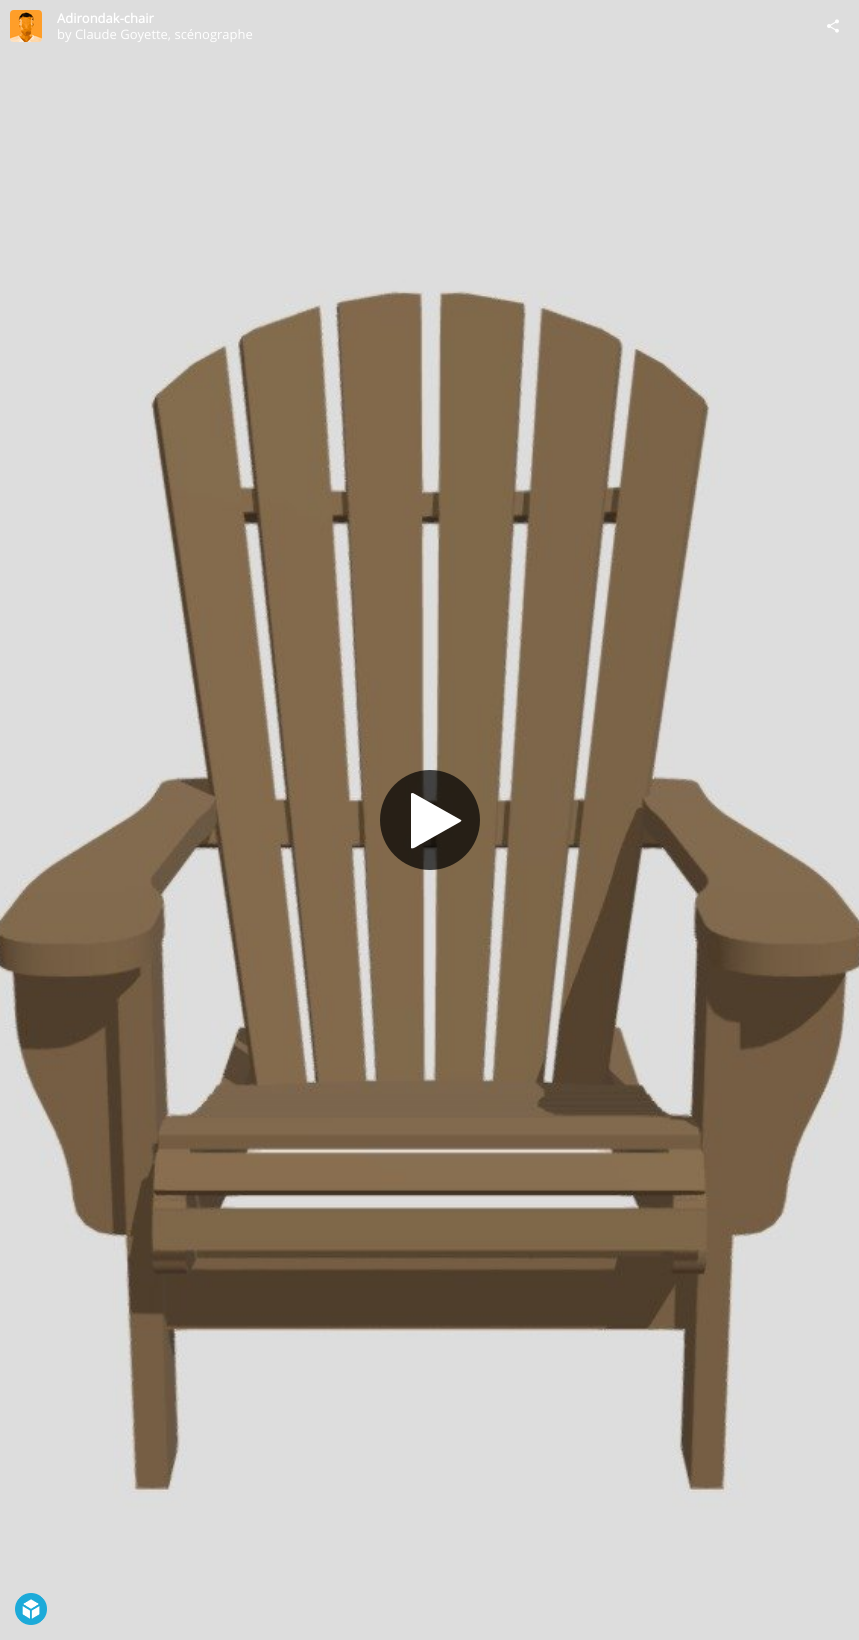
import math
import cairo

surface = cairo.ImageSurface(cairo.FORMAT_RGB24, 859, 1640)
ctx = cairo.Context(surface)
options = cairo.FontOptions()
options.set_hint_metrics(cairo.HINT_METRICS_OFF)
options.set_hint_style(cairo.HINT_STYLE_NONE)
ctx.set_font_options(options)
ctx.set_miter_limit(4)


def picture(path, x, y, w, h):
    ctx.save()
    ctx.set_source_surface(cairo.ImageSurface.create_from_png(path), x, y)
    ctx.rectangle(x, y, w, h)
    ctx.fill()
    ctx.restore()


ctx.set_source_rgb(1, 1, 1)
ctx.paint()
picture("img1.png", 0, 0, 859, 1640)
ctx.set_source_rgba(0, 0, 0, 0.7)
ctx.arc(430, 820, 50, 0, 2 * math.pi)
ctx.fill()
ctx.set_source_rgb(1, 1, 1)
ctx.new_path()
ctx.move_to(460, 822)
ctx.line_to(421, 844)
ctx.curve_to(420, 844, 413, 850, 411, 848)
ctx.line_to(411, 794)
ctx.curve_to(411, 793, 412, 793, 413, 793)
ctx.line_to(461, 820)
ctx.curve_to(462, 821, 461, 821, 460, 822)
ctx.close_path()
ctx.fill()
picture("img2.png", 15, 1593, 32, 32)
picture("img3.png", 10, 10, 32, 32)
ctx.select_font_face("Open Sans", cairo.FONT_SLANT_NORMAL, cairo.FONT_WEIGHT_BOLD)
ctx.set_font_size(13)
ctx.move_to(57, 23)
ctx.show_text("Adirondak-chair")
ctx.select_font_face("Open Sans")
ctx.move_to(57, 39)
ctx.show_text("by Claude Goyette, scénographe")
picture("img4.png", 827, 19, 12, 14)
surface.write_to_png("page.png")
